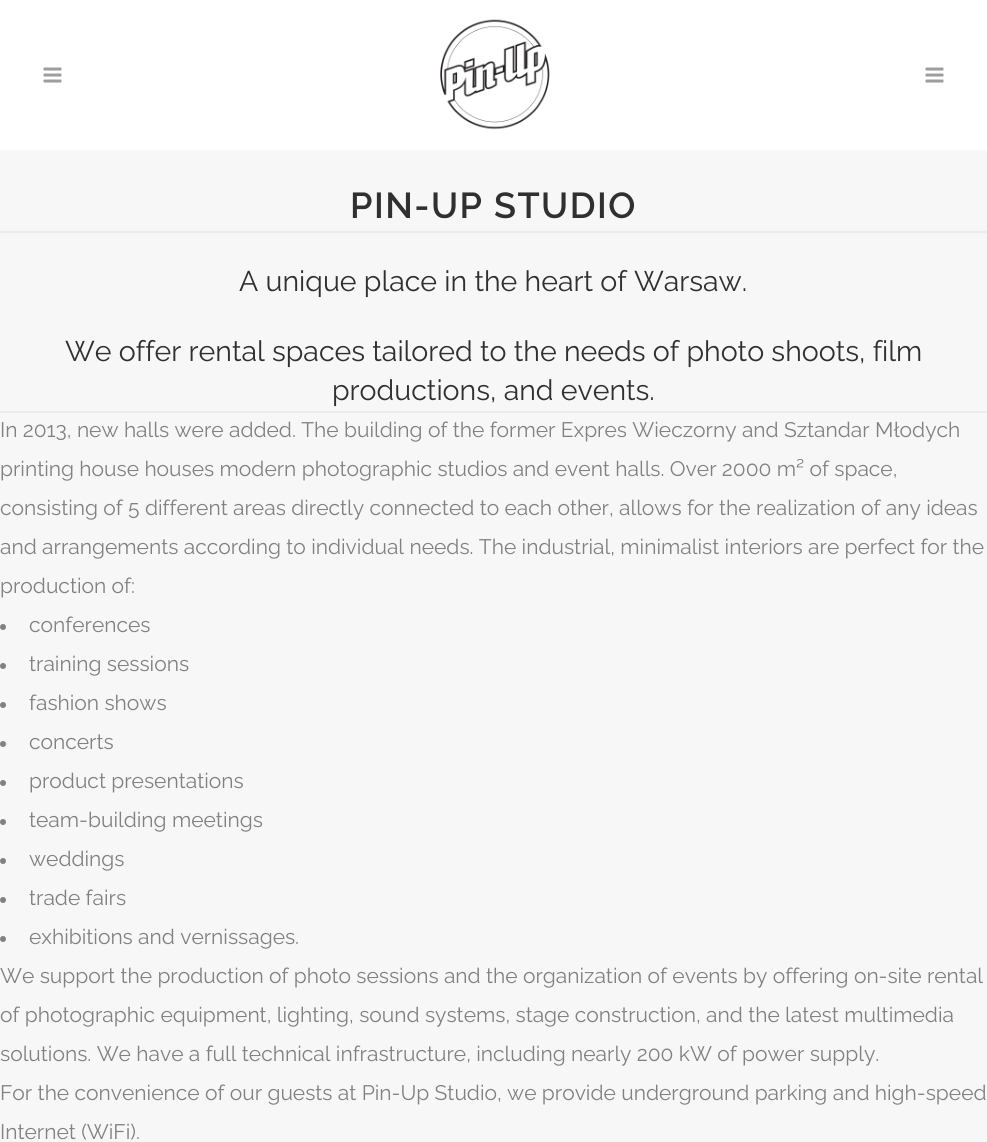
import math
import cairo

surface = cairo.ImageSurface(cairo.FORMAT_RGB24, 987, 1142)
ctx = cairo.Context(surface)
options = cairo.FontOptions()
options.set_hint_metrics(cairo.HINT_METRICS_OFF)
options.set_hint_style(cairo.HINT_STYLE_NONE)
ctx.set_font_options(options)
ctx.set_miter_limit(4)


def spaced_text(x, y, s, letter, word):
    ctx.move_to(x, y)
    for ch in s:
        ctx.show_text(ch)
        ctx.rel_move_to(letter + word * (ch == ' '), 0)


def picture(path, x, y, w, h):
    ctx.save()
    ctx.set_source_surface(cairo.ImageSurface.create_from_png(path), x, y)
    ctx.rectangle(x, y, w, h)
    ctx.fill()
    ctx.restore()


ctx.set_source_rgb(0.965, 0.965, 0.965)
ctx.paint()
ctx.set_source_rgb(1, 1, 1)
ctx.rectangle(0, 0, 987, 150)
ctx.fill()
picture("img1.png", 43, 67, 19, 16)
picture("img2.png", 440, 19, 110, 111)
picture("img1.png", 925, 67, 19, 16)
ctx.select_font_face("Raleway SemiBold")
ctx.set_font_size(36)
ctx.set_source_rgb(0.188, 0.188, 0.188)
spaced_text(350, 218, "PIN-UP STUDIO", 1.5, 0)
ctx.set_source_rgb(0.922, 0.922, 0.922)
ctx.rectangle(0, 231, 987, 2)
ctx.fill()
ctx.select_font_face("Raleway")
ctx.set_font_size(28.5)
ctx.set_source_rgb(0.188, 0.188, 0.188)
ctx.move_to(239, 291)
ctx.show_text("A unique place in the heart of Warsaw.")
ctx.move_to(65, 361)
ctx.show_text("We offer rental spaces tailored to the needs of photo shoots, film")
ctx.move_to(332, 400)
ctx.show_text("productions, and events.")
ctx.set_source_rgb(0.922, 0.922, 0.922)
ctx.rectangle(0, 411, 987, 2)
ctx.fill()
ctx.set_font_size(21)
ctx.set_source_rgb(0.506, 0.506, 0.506)
ctx.move_to(0, 437)
ctx.show_text("In 2013, new halls were added. The building of the former Expres Wieczorny and Sztandar Młodych")
ctx.move_to(0, 476)
ctx.show_text("printing house houses modern photographic studios and event halls. Over 2000 m² of space,")
ctx.move_to(0, 515)
ctx.show_text("consisting of 5 different areas directly connected to each other, allows for the realization of any ideas")
ctx.move_to(0, 554)
ctx.show_text("and arrangements according to individual needs. The industrial, minimalist interiors are perfect for the")
ctx.move_to(0, 593)
ctx.show_text("production of:")
ctx.new_path()
ctx.arc(3, 627, 3, 0, 2 * math.pi)
ctx.fill()
ctx.move_to(29, 632)
ctx.show_text("conferences")
ctx.new_path()
ctx.arc(3, 666, 3, 0, 2 * math.pi)
ctx.fill()
ctx.move_to(29, 671)
ctx.show_text("training sessions")
ctx.new_path()
ctx.arc(3, 705, 3, 0, 2 * math.pi)
ctx.fill()
ctx.move_to(29, 710)
ctx.show_text("fashion shows")
ctx.new_path()
ctx.arc(3, 744, 3, 0, 2 * math.pi)
ctx.fill()
ctx.move_to(29, 749)
ctx.show_text("concerts")
ctx.new_path()
ctx.arc(3, 783, 3, 0, 2 * math.pi)
ctx.fill()
ctx.move_to(29, 788)
ctx.show_text("product presentations")
ctx.new_path()
ctx.arc(3, 822, 3, 0, 2 * math.pi)
ctx.fill()
ctx.move_to(29, 827)
ctx.show_text("team-building meetings")
ctx.new_path()
ctx.arc(3, 861, 3, 0, 2 * math.pi)
ctx.fill()
ctx.move_to(29, 866)
ctx.show_text("weddings")
ctx.new_path()
ctx.arc(3, 900, 3, 0, 2 * math.pi)
ctx.fill()
ctx.move_to(29, 905)
ctx.show_text("trade fairs")
ctx.new_path()
ctx.arc(3, 939, 3, 0, 2 * math.pi)
ctx.fill()
ctx.move_to(29, 944)
ctx.show_text("exhibitions and vernissages.")
ctx.move_to(0, 983)
ctx.show_text("We support the production of photo sessions and the organization of events by offering on-site rental")
ctx.move_to(0, 1022)
ctx.show_text("of photographic equipment, lighting, sound systems, stage construction, and the latest multimedia")
ctx.move_to(0, 1061)
ctx.show_text("solutions. We have a full technical infrastructure, including nearly 200 kW of power supply.")
ctx.move_to(0, 1100)
ctx.show_text("For the convenience of our guests at Pin-Up Studio, we provide underground parking and high-speed")
ctx.move_to(0, 1139)
ctx.show_text("Internet (WiFi).")
surface.write_to_png("page.png")
